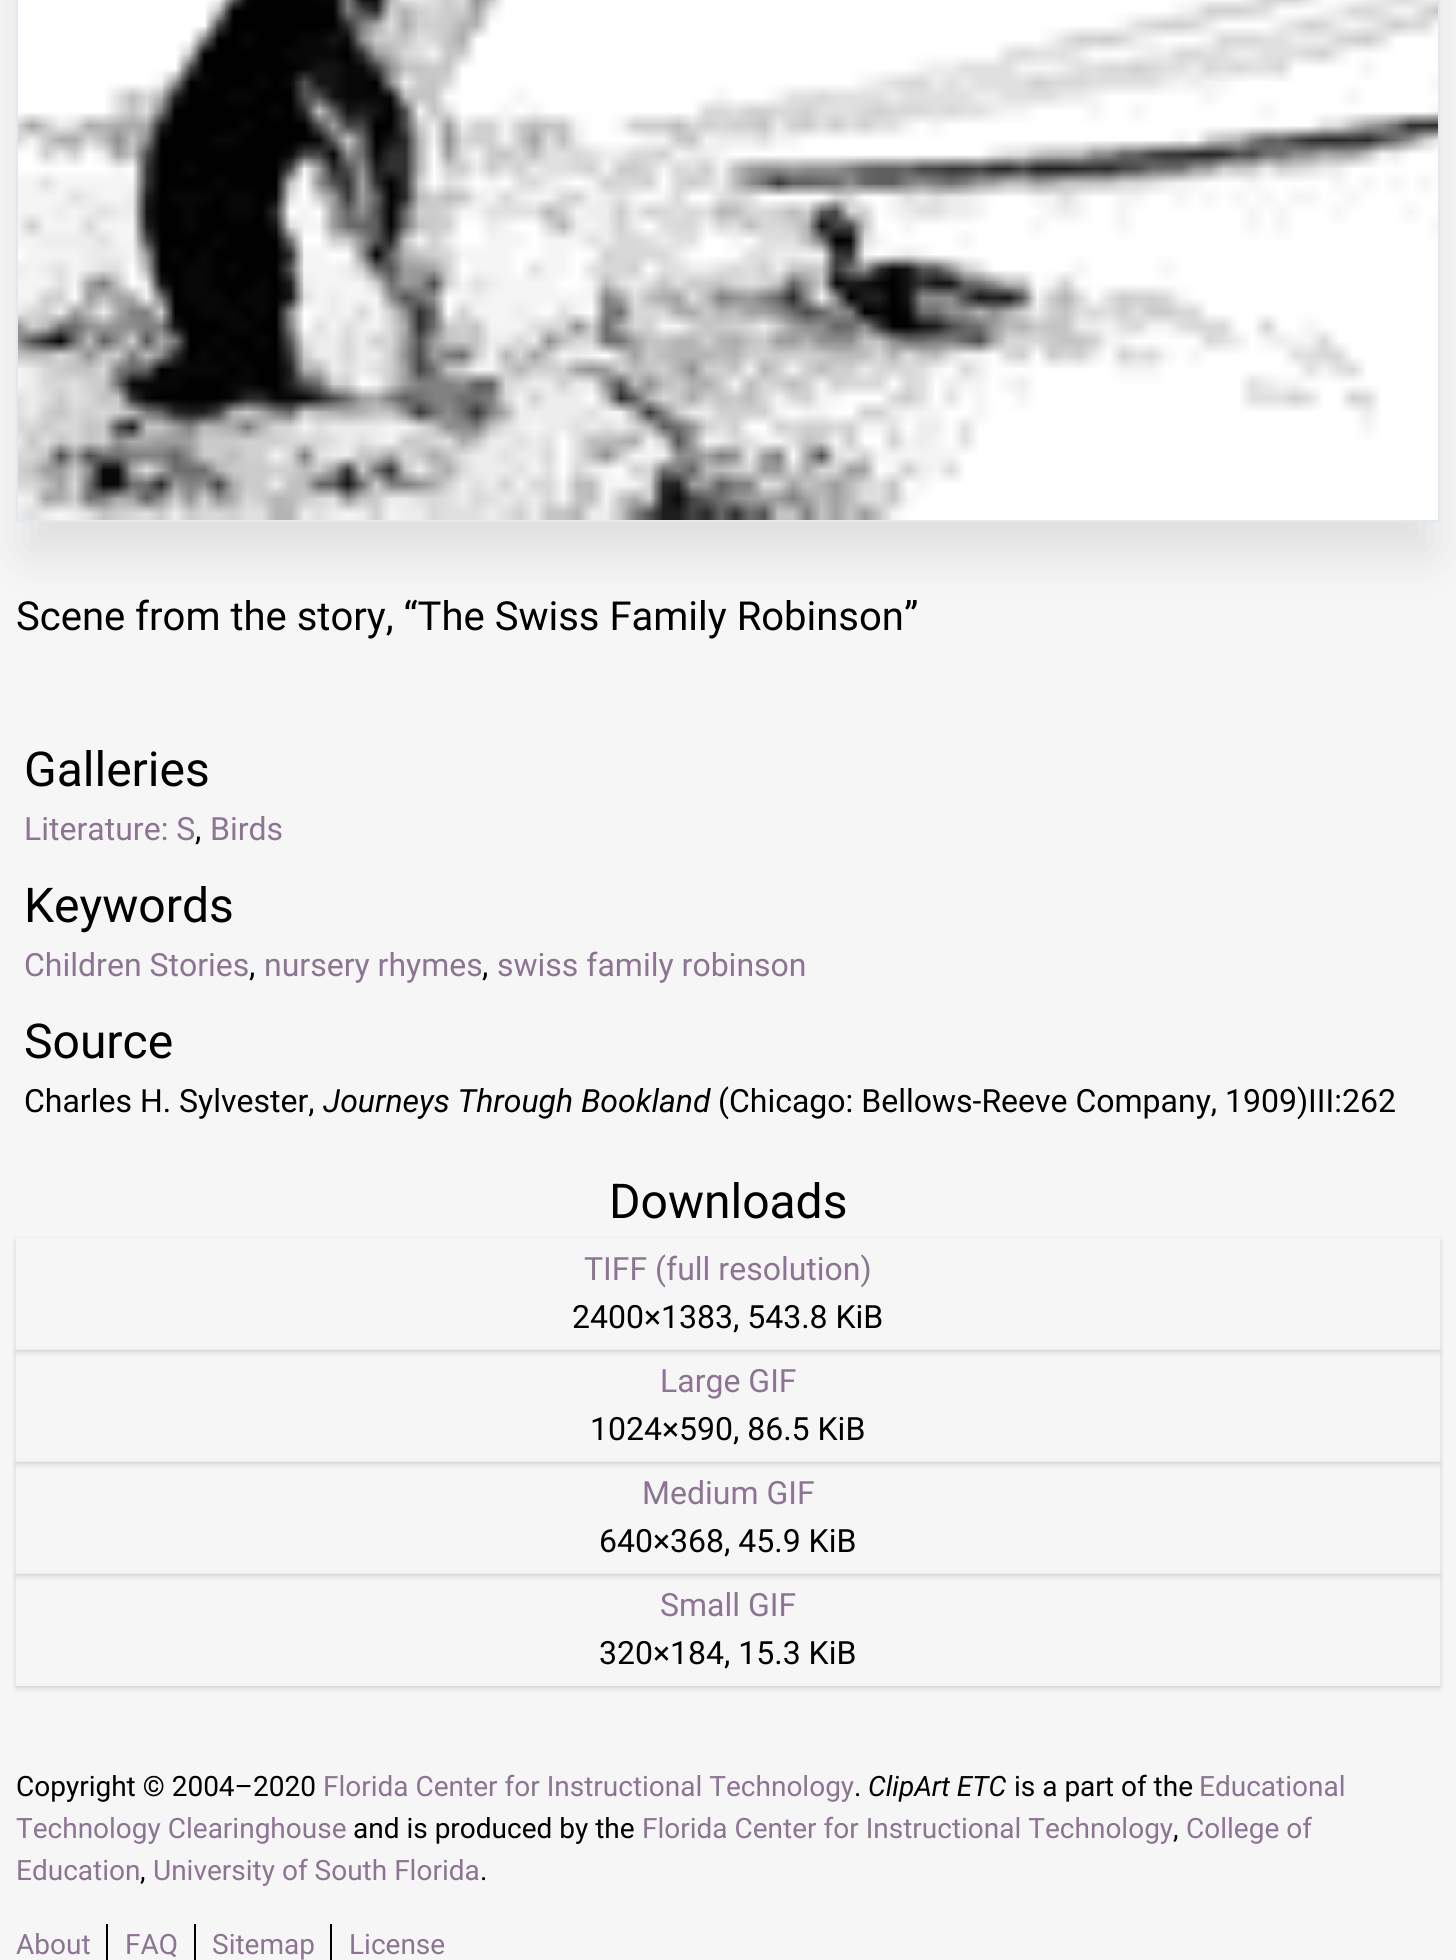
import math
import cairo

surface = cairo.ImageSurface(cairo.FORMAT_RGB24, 1456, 1960)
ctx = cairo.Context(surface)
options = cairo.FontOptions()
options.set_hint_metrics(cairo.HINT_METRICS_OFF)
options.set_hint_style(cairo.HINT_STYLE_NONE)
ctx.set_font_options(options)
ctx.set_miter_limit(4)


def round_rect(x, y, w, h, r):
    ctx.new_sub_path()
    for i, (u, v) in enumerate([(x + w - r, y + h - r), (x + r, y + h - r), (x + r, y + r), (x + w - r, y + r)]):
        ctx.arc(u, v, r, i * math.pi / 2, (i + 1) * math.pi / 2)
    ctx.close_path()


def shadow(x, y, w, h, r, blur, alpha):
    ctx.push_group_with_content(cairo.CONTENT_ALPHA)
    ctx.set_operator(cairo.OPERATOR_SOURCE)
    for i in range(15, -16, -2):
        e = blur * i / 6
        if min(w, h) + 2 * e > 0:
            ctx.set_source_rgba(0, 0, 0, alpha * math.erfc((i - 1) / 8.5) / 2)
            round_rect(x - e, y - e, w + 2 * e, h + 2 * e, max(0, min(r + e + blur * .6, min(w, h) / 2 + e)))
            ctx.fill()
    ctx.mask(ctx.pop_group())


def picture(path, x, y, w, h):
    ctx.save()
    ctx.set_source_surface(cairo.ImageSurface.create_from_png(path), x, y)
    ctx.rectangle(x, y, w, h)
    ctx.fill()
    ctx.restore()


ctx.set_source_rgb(0.961, 0.961, 0.961)
ctx.paint()
ctx.set_source_rgb(0, 0, 0)
shadow(26, -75, 1404, 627, 0, 25, 0.1)
ctx.rectangle(17, -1, 1422, 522)
ctx.set_source_rgb(0.886, 0.91, 0.941)
ctx.stroke()
picture("img1.png", 18, 0, 1420, 520)
ctx.select_font_face("Roboto")
ctx.set_font_size(40)
ctx.set_source_rgb(0, 0, 0)
ctx.move_to(16, 630)
ctx.show_text("Scene from the story, “The Swiss Family Robinson”")
ctx.set_font_size(48)
ctx.move_to(24, 786)
ctx.show_text("Galleries")
ctx.set_font_size(32)
ctx.set_source_rgb(0.553, 0.455, 0.576)
ctx.move_to(24, 840)
ctx.show_text("Literature: S")
ctx.set_source_rgb(0, 0, 0)
ctx.move_to(195, 840)
ctx.show_text(",")
ctx.set_source_rgb(0.553, 0.455, 0.576)
ctx.move_to(210, 840)
ctx.show_text("Birds")
ctx.set_font_size(48)
ctx.set_source_rgb(0, 0, 0)
ctx.move_to(24, 922)
ctx.show_text("Keywords")
ctx.set_font_size(32)
ctx.set_source_rgb(0.553, 0.455, 0.576)
ctx.move_to(24, 976)
ctx.show_text("Children Stories")
ctx.set_source_rgb(0, 0, 0)
ctx.move_to(249, 976)
ctx.show_text(",")
ctx.set_source_rgb(0.553, 0.455, 0.576)
ctx.move_to(264, 976)
ctx.show_text("nursery rhymes")
ctx.set_source_rgb(0, 0, 0)
ctx.move_to(482, 976)
ctx.show_text(",")
ctx.set_source_rgb(0.553, 0.455, 0.576)
ctx.move_to(497, 976)
ctx.show_text("swiss family robinson")
ctx.set_font_size(48)
ctx.set_source_rgb(0, 0, 0)
ctx.move_to(24, 1058)
ctx.show_text("Source")
ctx.set_font_size(32)
ctx.move_to(24, 1112)
ctx.show_text("Charles H. Sylvester,")
ctx.select_font_face("Roboto", cairo.FONT_SLANT_ITALIC)
ctx.move_to(323, 1112)
ctx.show_text("Journeys Through Bookland")
ctx.select_font_face("Roboto")
ctx.move_to(718, 1112)
ctx.show_text("(Chicago: Bellows-Reeve Company, 1909)III:262")
ctx.set_font_size(48)
ctx.move_to(609, 1218)
ctx.show_text("Downloads")
ctx.save()
ctx.set_fill_rule(cairo.FILL_RULE_EVEN_ODD)
ctx.new_path()
ctx.move_to(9, 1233)
ctx.line_to(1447, 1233)
ctx.line_to(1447, 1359)
ctx.line_to(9, 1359)
ctx.close_path()
ctx.move_to(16, 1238)
ctx.line_to(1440, 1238)
ctx.line_to(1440, 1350)
ctx.line_to(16, 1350)
ctx.close_path()
ctx.clip()
ctx.set_source_rgb(0, 0, 0)
shadow(16, 1240, 1424, 112, 0, 2, 0.06)
ctx.restore()
ctx.save()
ctx.set_fill_rule(cairo.FILL_RULE_EVEN_ODD)
ctx.new_path()
ctx.move_to(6, 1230)
ctx.line_to(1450, 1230)
ctx.line_to(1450, 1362)
ctx.line_to(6, 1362)
ctx.close_path()
ctx.move_to(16, 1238)
ctx.line_to(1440, 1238)
ctx.line_to(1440, 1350)
ctx.line_to(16, 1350)
ctx.close_path()
ctx.clip()
ctx.set_source_rgb(0, 0, 0)
shadow(16, 1240, 1424, 112, 0, 3, 0.1)
ctx.restore()
ctx.set_font_size(32)
ctx.set_source_rgb(0.553, 0.455, 0.576)
ctx.move_to(584, 1280)
ctx.show_text("TIFF (full resolution)")
ctx.set_source_rgb(0, 0, 0)
ctx.move_to(572, 1328)
ctx.show_text("2400×1383, 543.8 KiB")
ctx.save()
ctx.set_fill_rule(cairo.FILL_RULE_EVEN_ODD)
ctx.new_path()
ctx.move_to(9, 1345)
ctx.line_to(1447, 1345)
ctx.line_to(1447, 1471)
ctx.line_to(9, 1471)
ctx.close_path()
ctx.move_to(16, 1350)
ctx.line_to(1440, 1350)
ctx.line_to(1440, 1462)
ctx.line_to(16, 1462)
ctx.close_path()
ctx.clip()
ctx.set_source_rgb(0, 0, 0)
shadow(16, 1352, 1424, 112, 0, 2, 0.06)
ctx.restore()
ctx.save()
ctx.set_fill_rule(cairo.FILL_RULE_EVEN_ODD)
ctx.new_path()
ctx.move_to(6, 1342)
ctx.line_to(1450, 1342)
ctx.line_to(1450, 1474)
ctx.line_to(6, 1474)
ctx.close_path()
ctx.move_to(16, 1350)
ctx.line_to(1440, 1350)
ctx.line_to(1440, 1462)
ctx.line_to(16, 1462)
ctx.close_path()
ctx.clip()
ctx.set_source_rgb(0, 0, 0)
shadow(16, 1352, 1424, 112, 0, 3, 0.1)
ctx.restore()
ctx.set_source_rgb(0.553, 0.455, 0.576)
ctx.move_to(660, 1392)
ctx.show_text("Large GIF")
ctx.set_source_rgb(0, 0, 0)
ctx.move_to(590, 1440)
ctx.show_text("1024×590, 86.5 KiB")
ctx.save()
ctx.set_fill_rule(cairo.FILL_RULE_EVEN_ODD)
ctx.new_path()
ctx.move_to(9, 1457)
ctx.line_to(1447, 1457)
ctx.line_to(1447, 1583)
ctx.line_to(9, 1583)
ctx.close_path()
ctx.move_to(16, 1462)
ctx.line_to(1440, 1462)
ctx.line_to(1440, 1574)
ctx.line_to(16, 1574)
ctx.close_path()
ctx.clip()
ctx.set_source_rgb(0, 0, 0)
shadow(16, 1464, 1424, 112, 0, 2, 0.06)
ctx.restore()
ctx.save()
ctx.set_fill_rule(cairo.FILL_RULE_EVEN_ODD)
ctx.new_path()
ctx.move_to(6, 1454)
ctx.line_to(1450, 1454)
ctx.line_to(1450, 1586)
ctx.line_to(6, 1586)
ctx.close_path()
ctx.move_to(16, 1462)
ctx.line_to(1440, 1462)
ctx.line_to(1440, 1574)
ctx.line_to(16, 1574)
ctx.close_path()
ctx.clip()
ctx.set_source_rgb(0, 0, 0)
shadow(16, 1464, 1424, 112, 0, 3, 0.1)
ctx.restore()
ctx.set_source_rgb(0.553, 0.455, 0.576)
ctx.move_to(642, 1504)
ctx.show_text("Medium GIF")
ctx.set_source_rgb(0, 0, 0)
ctx.move_to(599, 1552)
ctx.show_text("640×368, 45.9 KiB")
ctx.save()
ctx.set_fill_rule(cairo.FILL_RULE_EVEN_ODD)
ctx.new_path()
ctx.move_to(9, 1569)
ctx.line_to(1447, 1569)
ctx.line_to(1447, 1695)
ctx.line_to(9, 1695)
ctx.close_path()
ctx.move_to(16, 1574)
ctx.line_to(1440, 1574)
ctx.line_to(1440, 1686)
ctx.line_to(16, 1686)
ctx.close_path()
ctx.clip()
ctx.set_source_rgb(0, 0, 0)
shadow(16, 1576, 1424, 112, 0, 2, 0.06)
ctx.restore()
ctx.save()
ctx.set_fill_rule(cairo.FILL_RULE_EVEN_ODD)
ctx.new_path()
ctx.move_to(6, 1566)
ctx.line_to(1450, 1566)
ctx.line_to(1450, 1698)
ctx.line_to(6, 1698)
ctx.close_path()
ctx.move_to(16, 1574)
ctx.line_to(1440, 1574)
ctx.line_to(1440, 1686)
ctx.line_to(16, 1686)
ctx.close_path()
ctx.clip()
ctx.set_source_rgb(0, 0, 0)
shadow(16, 1576, 1424, 112, 0, 3, 0.1)
ctx.restore()
ctx.set_source_rgb(0.553, 0.455, 0.576)
ctx.move_to(660, 1616)
ctx.show_text("Small GIF")
ctx.set_source_rgb(0, 0, 0)
ctx.move_to(599, 1664)
ctx.show_text("320×184, 15.3 KiB")
ctx.set_font_size(28)
ctx.move_to(16, 1796)
ctx.show_text("Copyright © 2004–2020")
ctx.set_source_rgb(0.553, 0.455, 0.576)
ctx.move_to(323, 1796)
ctx.show_text("Florida Center for Instructional Technology")
ctx.set_source_rgb(0, 0, 0)
ctx.move_to(854, 1796)
ctx.show_text(".")
ctx.select_font_face("Roboto", cairo.FONT_SLANT_ITALIC)
ctx.move_to(868, 1796)
ctx.show_text("ClipArt ETC")
ctx.select_font_face("Roboto")
ctx.move_to(1014, 1796)
ctx.show_text("is a part of the")
ctx.set_source_rgb(0.553, 0.455, 0.576)
ctx.move_to(1199, 1796)
ctx.show_text("Educational")
ctx.move_to(16, 1838)
ctx.show_text("Technology Clearinghouse")
ctx.set_source_rgb(0, 0, 0)
ctx.move_to(353, 1838)
ctx.show_text("and is produced by the")
ctx.set_source_rgb(0.553, 0.455, 0.576)
ctx.move_to(642, 1838)
ctx.show_text("Florida Center for Instructional Technology")
ctx.set_source_rgb(0, 0, 0)
ctx.move_to(1173, 1838)
ctx.show_text(",")
ctx.set_source_rgb(0.553, 0.455, 0.576)
ctx.move_to(1186, 1838)
ctx.show_text("College of")
ctx.move_to(16, 1880)
ctx.show_text("Education")
ctx.set_source_rgb(0, 0, 0)
ctx.move_to(140, 1880)
ctx.show_text(",")
ctx.set_source_rgb(0.553, 0.455, 0.576)
ctx.move_to(153, 1880)
ctx.show_text("University of South Florida")
ctx.set_source_rgb(0, 0, 0)
ctx.move_to(480, 1880)
ctx.show_text(".")
ctx.rectangle(106, 1924, 2, 36)
ctx.fill()
ctx.set_source_rgb(0.553, 0.455, 0.576)
ctx.move_to(16, 1954)
ctx.show_text("About")
ctx.set_source_rgb(0, 0, 0)
ctx.rectangle(194, 1924, 2, 36)
ctx.fill()
ctx.set_source_rgb(0.553, 0.455, 0.576)
ctx.move_to(125, 1954)
ctx.show_text("FAQ")
ctx.set_source_rgb(0, 0, 0)
ctx.rectangle(330, 1924, 2, 36)
ctx.fill()
ctx.set_source_rgb(0.553, 0.455, 0.576)
ctx.move_to(212, 1954)
ctx.show_text("Sitemap")
ctx.move_to(349, 1954)
ctx.show_text("License")
surface.write_to_png("page.png")
